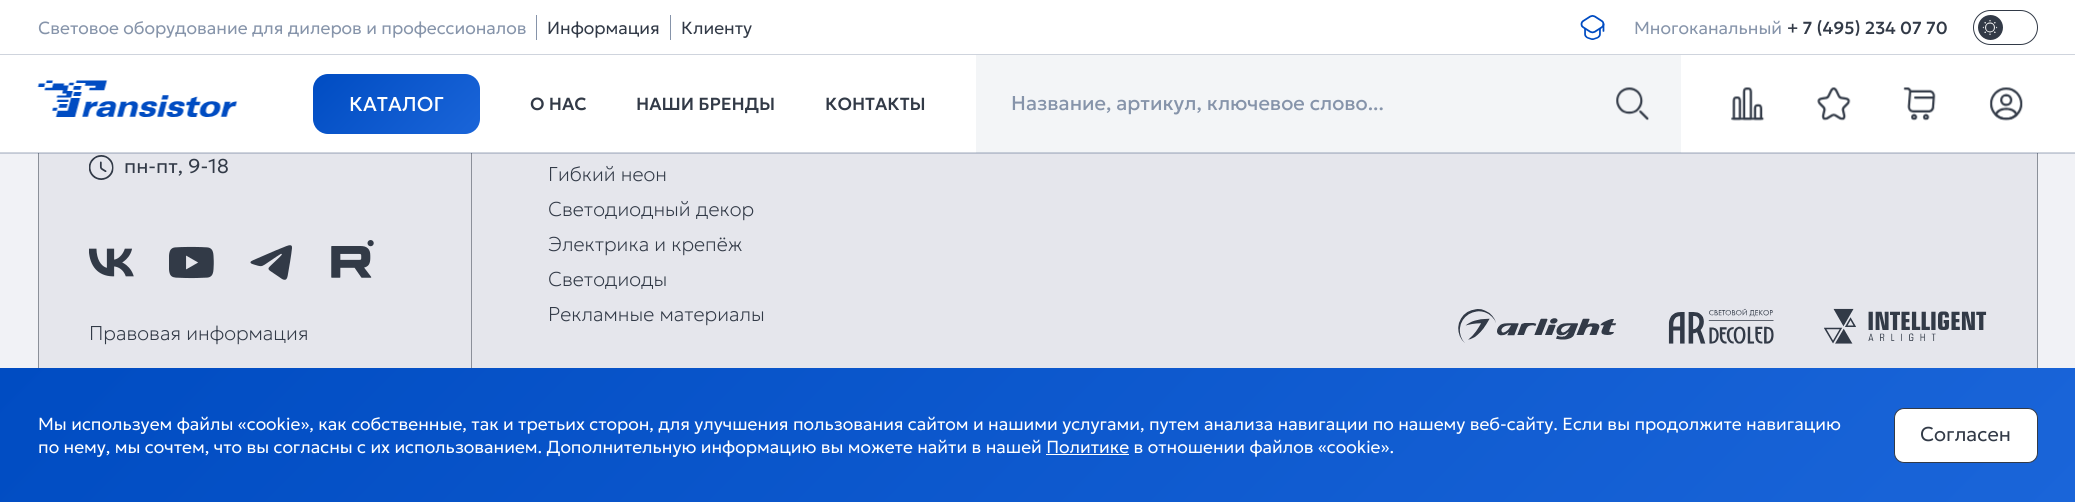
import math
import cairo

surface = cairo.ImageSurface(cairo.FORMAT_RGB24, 2075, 502)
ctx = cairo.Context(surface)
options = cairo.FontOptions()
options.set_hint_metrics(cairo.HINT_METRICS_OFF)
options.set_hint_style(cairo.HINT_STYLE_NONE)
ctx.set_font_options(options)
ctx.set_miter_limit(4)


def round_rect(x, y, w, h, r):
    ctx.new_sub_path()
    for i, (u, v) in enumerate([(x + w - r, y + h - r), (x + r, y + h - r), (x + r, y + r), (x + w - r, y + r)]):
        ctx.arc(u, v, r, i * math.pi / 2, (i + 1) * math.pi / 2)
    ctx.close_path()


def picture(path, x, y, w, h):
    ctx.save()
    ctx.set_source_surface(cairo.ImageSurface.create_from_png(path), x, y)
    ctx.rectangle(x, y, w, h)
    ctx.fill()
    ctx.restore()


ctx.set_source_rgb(0.945, 0.949, 0.961)
ctx.paint()
ctx.set_source_rgb(0.898, 0.902, 0.925)
ctx.rectangle(38, 153, 2000, 215)
ctx.fill()
ctx.rectangle(38.5, -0.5, 1999, 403)
ctx.set_source_rgba(0.196, 0.227, 0.278, 0.5)
ctx.set_line_width(1)
ctx.stroke()
ctx.set_source_rgb(1, 1, 1)
ctx.rectangle(0, 0, 2075, 153)
ctx.fill()
ctx.select_font_face("Geologica Light")
ctx.set_font_size(17.5)
ctx.set_source_rgb(0.525, 0.58, 0.667)
ctx.move_to(38, 34)
ctx.show_text("Световое оборудование для дилеров и профессионалов")
ctx.rectangle(536, 15, 1, 25)
ctx.fill()
ctx.set_source_rgb(0.196, 0.227, 0.278)
ctx.move_to(547, 34)
ctx.show_text("Информация")
ctx.set_source_rgb(0.525, 0.58, 0.667)
ctx.rectangle(670, 15, 1, 25)
ctx.fill()
ctx.set_source_rgb(0.196, 0.227, 0.278)
ctx.move_to(681, 34)
ctx.show_text("Клиенту")
picture("img1.png", 1580, 15, 25, 25)
ctx.set_source_rgb(0.525, 0.58, 0.667)
ctx.move_to(1634, 34)
ctx.show_text("Многоканальный")
ctx.select_font_face("Geologica Medium")
ctx.set_source_rgb(0.196, 0.227, 0.278)
ctx.move_to(1787, 34)
ctx.show_text("+ 7 (495) 234 07 70")
round_rect(1973.5, 10.5, 64, 34, 17)
ctx.stroke()
ctx.arc(1990.5, 27.5, 12.5, 0, 2 * math.pi)
ctx.fill()
picture("img2.png", 1982, 20, 16, 15)
ctx.set_source_rgb(0.549, 0.565, 0.604)
ctx.rectangle(471, 153, 1, 215)
ctx.fill()
ctx.set_source_rgba(0.059, 0.165, 0.337, 0.2)
ctx.rectangle(0, 152, 2075, 2)
ctx.fill()
ctx.set_source_rgb(0.812, 0.831, 0.867)
ctx.rectangle(0, 54, 2075, 1)
ctx.fill()
picture("img3.png", 37, 80, 201, 37)
gradient = cairo.LinearGradient(339, 47, 453, 161)
gradient.add_color_stop_rgba(0, 0, 0.298, 0.761, 1)
gradient.add_color_stop_rgba(1, 0.102, 0.396, 0.851, 1)
ctx.set_source(gradient)
round_rect(313, 74, 167, 60, 15)
ctx.fill()
ctx.select_font_face("Geologica")
ctx.set_font_size(20)
ctx.set_source_rgb(1, 1, 1)
ctx.move_to(349, 111)
ctx.show_text("КАТАЛОГ")
ctx.select_font_face("Geologica Medium")
ctx.set_font_size(17.5)
ctx.set_source_rgb(0.196, 0.227, 0.278)
ctx.move_to(530, 110)
ctx.show_text("О НАС")
ctx.move_to(636, 110)
ctx.show_text("НАШИ БРЕНДЫ")
ctx.move_to(825, 110)
ctx.show_text("КОНТАКТЫ")
ctx.set_source_rgba(0.059, 0.165, 0.337, 0.05)
ctx.rectangle(976, 55, 705, 98)
ctx.fill()
ctx.select_font_face("Geologica")
ctx.set_font_size(20)
ctx.set_source_rgb(0.525, 0.58, 0.667)
ctx.move_to(1011, 110)
ctx.show_text("Название, артикул, ключевое слово...")
picture("img4.png", 1616, 87, 33, 34)
picture("img5.png", 1731, 87, 34, 34)
picture("img6.png", 1817, 87, 34, 34)
picture("img7.png", 1903, 87, 33, 34)
picture("img8.png", 1989, 87, 34, 34)
picture("img9.png", 89, 155, 25, 25)
ctx.select_font_face("Geologica Light")
ctx.set_source_rgb(0.196, 0.227, 0.278)
ctx.move_to(124, 173)
ctx.show_text("пн-пт, 9-18")
picture("img10.png", 89, 248, 45, 29)
picture("img11.png", 169, 246, 45, 33)
picture("img12.png", 250, 245, 42, 35)
picture("img13.png", 331, 240, 43, 38)
ctx.select_font_face("Geologica Thin")
ctx.move_to(89, 340)
ctx.show_text("Правовая информация")
ctx.move_to(548, 181)
ctx.show_text("Гибкий неон")
ctx.move_to(548, 216)
ctx.show_text("Светодиодный декор")
ctx.move_to(548, 251)
ctx.show_text("Электрика и крепёж")
ctx.move_to(548, 286)
ctx.show_text("Светодиоды")
ctx.move_to(548, 321)
ctx.show_text("Рекламные материалы")
picture("img14.png", 1458, 309, 159, 34)
picture("img15.png", 1668, 308, 106, 36)
picture("img16.png", 1824, 308, 163, 36)
gradient = cairo.LinearGradient(485, -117, 1590, 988)
gradient.add_color_stop_rgba(0, 0, 0.298, 0.761, 1)
gradient.add_color_stop_rgba(1, 0.102, 0.396, 0.851, 1)
ctx.set_source(gradient)
ctx.rectangle(0, 368, 2075, 134)
ctx.fill()
ctx.select_font_face("Geologica Light")
ctx.set_font_size(17.5)
ctx.set_source_rgb(1, 1, 1)
ctx.move_to(38, 430)
ctx.show_text("Мы используем файлы «cookie», как собственные, так и третьих сторон, для улучшения пользования сайтом и нашими услугами, путем анализа навигации по нашему веб-сайту. Если вы продолжите навигацию")
ctx.move_to(38, 453)
ctx.show_text("по нему, мы сочтем, что вы согласны с их использованием. Дополнительную информацию вы можете найти в нашей Политике в отношении файлов «cookie».")
ctx.rectangle(1046, 454, 83, 1)
ctx.fill()
round_rect(1894.5, 408.5, 143, 54, 9.5)
ctx.fill_preserve()
ctx.set_source_rgb(0.196, 0.227, 0.278)
ctx.stroke()
ctx.set_font_size(20)
ctx.move_to(1920, 441)
ctx.show_text("Согласен")
surface.write_to_png("page.png")
